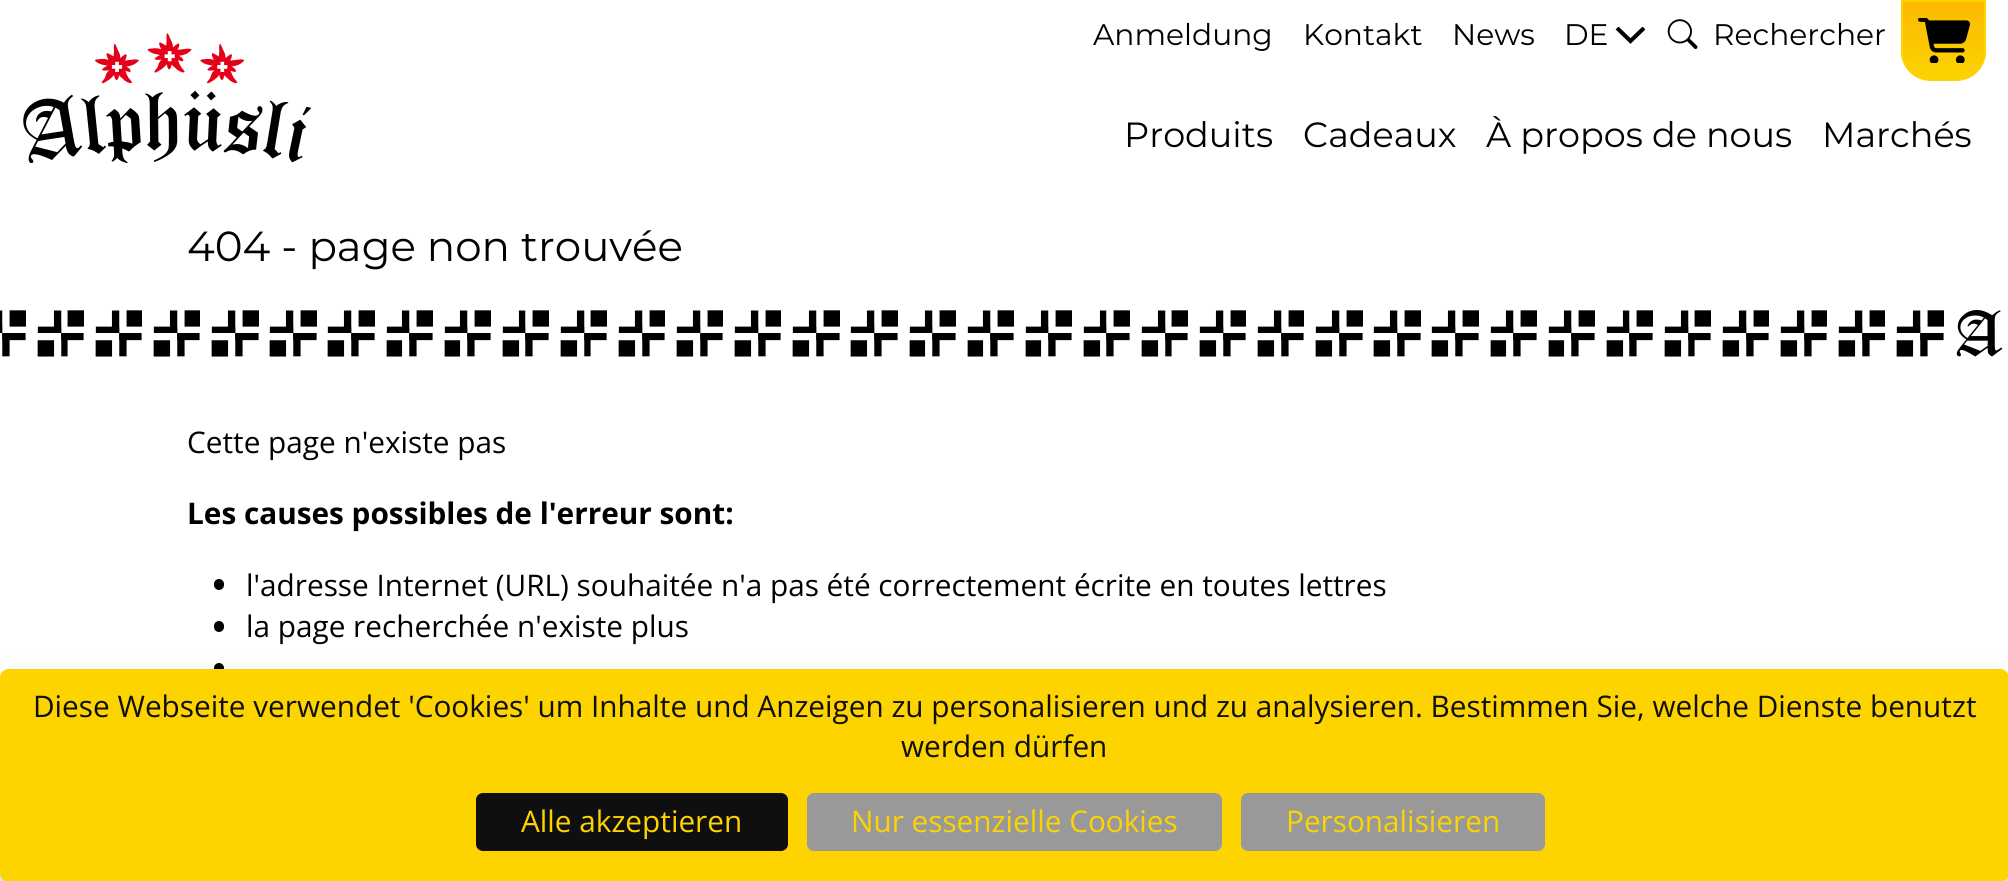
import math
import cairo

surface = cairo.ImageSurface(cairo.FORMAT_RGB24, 2008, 881)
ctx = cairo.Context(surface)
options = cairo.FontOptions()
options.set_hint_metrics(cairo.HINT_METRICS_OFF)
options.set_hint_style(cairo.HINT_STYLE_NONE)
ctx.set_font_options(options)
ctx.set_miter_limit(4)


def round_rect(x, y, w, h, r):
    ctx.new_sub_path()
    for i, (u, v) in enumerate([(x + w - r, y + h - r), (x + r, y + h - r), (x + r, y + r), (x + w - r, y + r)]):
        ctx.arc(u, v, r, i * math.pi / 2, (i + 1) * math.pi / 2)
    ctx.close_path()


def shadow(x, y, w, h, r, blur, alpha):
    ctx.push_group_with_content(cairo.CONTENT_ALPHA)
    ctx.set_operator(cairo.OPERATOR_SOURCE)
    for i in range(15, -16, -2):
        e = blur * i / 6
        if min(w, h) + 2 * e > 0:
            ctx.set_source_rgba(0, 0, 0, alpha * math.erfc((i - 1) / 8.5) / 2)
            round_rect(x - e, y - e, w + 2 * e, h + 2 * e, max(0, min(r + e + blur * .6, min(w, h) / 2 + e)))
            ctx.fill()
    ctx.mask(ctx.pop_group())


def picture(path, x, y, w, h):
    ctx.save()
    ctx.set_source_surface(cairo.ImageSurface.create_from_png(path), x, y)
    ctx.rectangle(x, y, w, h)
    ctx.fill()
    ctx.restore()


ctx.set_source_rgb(1, 1, 1)
ctx.paint()
picture("img1.png", 23, 33, 288, 130)
ctx.select_font_face("Montserrat")
ctx.set_font_size(29.75)
ctx.set_source_rgb(0, 0, 0)
ctx.move_to(1093, 45)
ctx.show_text("Anmeldung")
ctx.move_to(1303, 45)
ctx.show_text("Kontakt")
ctx.move_to(1452, 45)
ctx.show_text("News")
ctx.move_to(1564, 45)
ctx.show_text("DE")
ctx.save()
ctx.new_path()
ctx.move_to(1645, 27)
ctx.line_to(1645, 44.5)
ctx.line_to(1615, 44.5)
ctx.line_to(1615, 27)
ctx.close_path()
ctx.clip()
ctx.new_path()
ctx.move_to(1644, 28)
ctx.line_to(1630.5, 41)
ctx.line_to(1617, 28)
ctx.set_line_width(4.1)
ctx.stroke()
ctx.restore()
picture("img2.png", 1667, 19, 31, 30)
ctx.move_to(1713, 45)
ctx.show_text("Rechercher")
ctx.save()
ctx.new_path()
ctx.move_to(1901, 0)
ctx.line_to(1986, 0)
ctx.line_to(1986, 51)
ctx.curve_to(1986, 67.5, 1972.5, 81, 1956, 81)
ctx.line_to(1931, 81)
ctx.curve_to(1914.5, 81, 1901, 67.5, 1901, 51)
ctx.close_path()
ctx.clip()
gradient = cairo.LinearGradient(1943, 79, 1943, 1.8)
gradient.add_color_stop_rgba(0, 0.992, 0.827, 0, 1)
gradient.add_color_stop_rgba(1, 0.984, 0.725, 0, 1)
ctx.set_source(gradient)
ctx.rectangle(1901, 2, 85, 77)
ctx.fill()
ctx.restore()
ctx.new_path()
ctx.move_to(1902, 1)
ctx.line_to(1985, 1)
ctx.line_to(1985, 51)
ctx.curve_to(1985, 67, 1972, 80, 1956, 80)
ctx.line_to(1931, 80)
ctx.curve_to(1915, 80, 1902, 67, 1902, 51)
ctx.close_path()
ctx.set_source_rgb(0.992, 0.827, 0)
ctx.stroke()
picture("img3.png", 1918, 18, 52, 45)
ctx.set_font_size(35)
ctx.set_source_rgb(0, 0, 0)
ctx.move_to(1124, 147)
ctx.show_text("Produits")
ctx.move_to(1303, 147)
ctx.show_text("Cadeaux")
ctx.move_to(1486, 147)
ctx.show_text("À propos de nous")
ctx.move_to(1822, 147)
ctx.show_text("Marchés")
ctx.set_font_size(42)
ctx.move_to(187, 261)
ctx.show_text("404 - page non trouvée")
picture("img4.png", 0, 310, 1944, 47)
picture("img5.png", 1956, 310, 47, 47)
ctx.select_font_face("Open Sans")
ctx.set_font_size(29.75)
ctx.move_to(187, 453)
ctx.show_text("Cette page n'existe pas")
ctx.select_font_face("Open Sans", cairo.FONT_SLANT_NORMAL, cairo.FONT_WEIGHT_BOLD)
ctx.move_to(187, 524)
ctx.show_text("Les causes possibles de l'erreur sont:")
round_rect(214, 579, 10, 11, 5)
ctx.fill()
ctx.select_font_face("Open Sans")
ctx.move_to(246, 596)
ctx.show_text("l'adresse Internet (URL) souhaitée n'a pas été correctement écrite en toutes lettres")
round_rect(214, 621, 10, 11, 5)
ctx.fill()
ctx.move_to(246, 637)
ctx.show_text("la page recherchée n'existe plus")
round_rect(214, 663, 10, 11, 5)
ctx.fill()
ctx.set_source_rgb(0, 0, 0)
shadow(14, 697, 1981, 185, 0, 14, 0.3)
ctx.set_source_rgb(0.196, 0.196, 0.365)
shadow(9, 700, 1991, 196, 0, 23.5, 0.25)
ctx.set_source_rgb(0.992, 0.827, 0)
round_rect(0, 669, 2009, 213, 9)
ctx.fill()
ctx.set_source_rgb(0.059, 0.059, 0.059)
ctx.move_to(33, 717)
ctx.show_text("Diese Webseite verwendet 'Cookies' um Inhalte und Anzeigen zu personalisieren und zu analysieren. Bestimmen Sie, welche Dienste benutzt")
ctx.move_to(901, 757)
ctx.show_text("werden dürfen")
round_rect(476, 793, 312, 58, 7)
ctx.fill()
ctx.set_source_rgb(0.992, 0.827, 0)
ctx.move_to(521, 832)
ctx.show_text("Alle akzeptieren")
ctx.set_source_rgb(0.6, 0.6, 0.6)
round_rect(807, 793, 415, 58, 7)
ctx.fill()
ctx.set_source_rgb(0.992, 0.827, 0)
ctx.move_to(851, 832)
ctx.show_text("Nur essenzielle Cookies")
ctx.set_source_rgb(0.6, 0.6, 0.6)
round_rect(1241, 793, 304, 58, 7)
ctx.fill()
ctx.set_source_rgb(0.992, 0.827, 0)
ctx.move_to(1286, 832)
ctx.show_text("Personalisieren")
surface.write_to_png("page.png")
